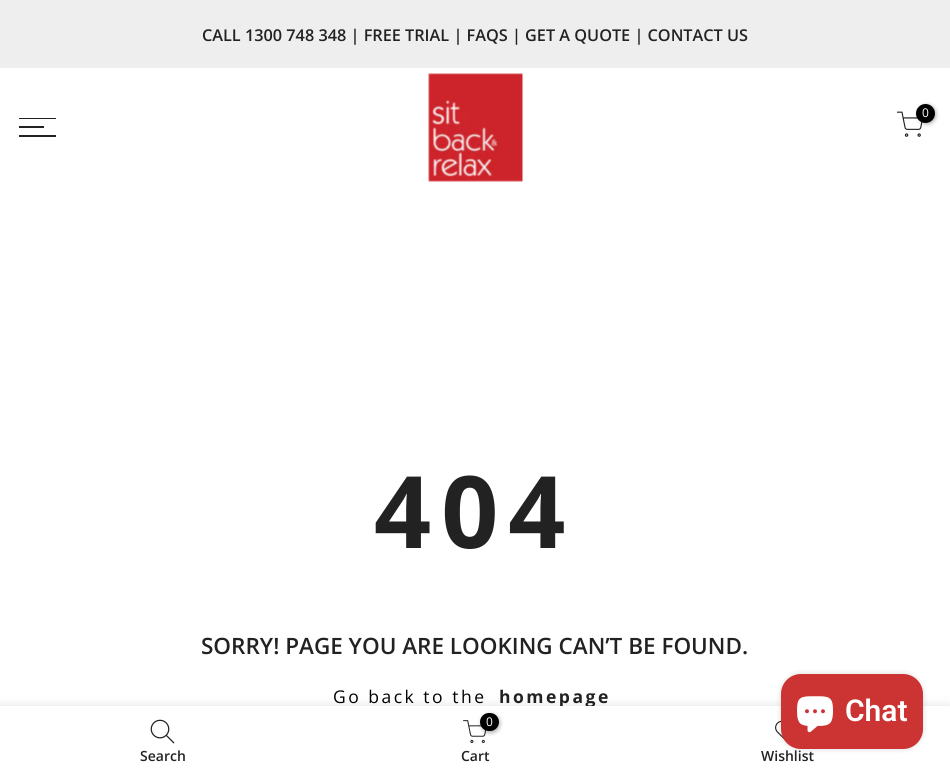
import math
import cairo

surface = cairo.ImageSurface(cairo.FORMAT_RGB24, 950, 775)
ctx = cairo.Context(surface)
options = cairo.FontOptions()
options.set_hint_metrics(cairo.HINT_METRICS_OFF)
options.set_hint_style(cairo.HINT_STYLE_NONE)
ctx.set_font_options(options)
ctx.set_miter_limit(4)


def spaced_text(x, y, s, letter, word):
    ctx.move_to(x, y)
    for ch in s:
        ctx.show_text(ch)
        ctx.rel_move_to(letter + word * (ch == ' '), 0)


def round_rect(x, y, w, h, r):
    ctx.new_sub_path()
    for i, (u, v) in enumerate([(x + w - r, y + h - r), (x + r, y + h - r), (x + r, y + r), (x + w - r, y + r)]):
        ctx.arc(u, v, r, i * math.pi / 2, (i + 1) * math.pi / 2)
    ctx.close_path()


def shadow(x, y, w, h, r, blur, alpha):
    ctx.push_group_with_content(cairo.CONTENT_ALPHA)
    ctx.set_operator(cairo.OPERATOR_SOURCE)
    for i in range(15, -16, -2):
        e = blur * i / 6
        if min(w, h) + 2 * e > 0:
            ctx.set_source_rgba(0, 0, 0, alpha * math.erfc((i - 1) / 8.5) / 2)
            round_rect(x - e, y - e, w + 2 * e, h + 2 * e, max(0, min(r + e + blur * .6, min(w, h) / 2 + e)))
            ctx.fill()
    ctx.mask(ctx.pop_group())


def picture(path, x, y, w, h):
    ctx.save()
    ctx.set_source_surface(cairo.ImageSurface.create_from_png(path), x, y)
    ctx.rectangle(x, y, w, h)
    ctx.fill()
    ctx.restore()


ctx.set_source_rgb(1, 1, 1)
ctx.paint()
ctx.set_source_rgb(0.933, 0.933, 0.933)
ctx.rectangle(0, 0, 950, 68)
ctx.fill()
ctx.select_font_face("Open Sans SemiBold")
ctx.set_font_size(16.25)
ctx.set_source_rgb(0.133, 0.133, 0.133)
ctx.move_to(202, 41)
ctx.show_text("CALL 1300 748 348 | FREE TRIAL | FAQS | GET A QUOTE | CONTACT US")
picture("img1.png", 428, 73, 95, 109)
picture("img2.png", 896, 111, 27, 26)
ctx.set_source_rgb(0, 0, 0)
shadow(918, 105, 18, 19, 9, 2, 0.3)
ctx.set_source_rgb(0, 0, 0)
ctx.arc(925.5, 113.5, 9.5, 0, 2 * math.pi)
ctx.fill()
ctx.select_font_face("Open Sans")
ctx.set_font_size(12)
ctx.set_source_rgb(1, 1, 1)
ctx.move_to(922, 117)
ctx.show_text("0")
ctx.set_source_rgb(0.133, 0.133, 0.133)
ctx.rectangle(19, 118, 37, 1)
ctx.fill()
ctx.rectangle(19, 126, 25, 2)
ctx.fill()
ctx.rectangle(19, 135, 37, 2)
ctx.fill()
ctx.select_font_face("Open Sans", cairo.FONT_SLANT_NORMAL, cairo.FONT_WEIGHT_BOLD)
ctx.set_font_size(100)
spaced_text(374, 548, "404", 10, 0)
ctx.select_font_face("Open Sans SemiBold")
ctx.set_font_size(22.5)
ctx.move_to(201, 654)
ctx.show_text("SORRY! PAGE YOU ARE LOOKING CAN’T BE FOUND.")
ctx.select_font_face("Open Sans")
ctx.set_font_size(17.5)
ctx.set_source_rgb(0, 0, 0)
spaced_text(333, 703, "Go back to the", 2.5, 0)
ctx.select_font_face("Open Sans", cairo.FONT_SLANT_NORMAL, cairo.FONT_WEIGHT_BOLD)
ctx.set_source_rgb(0.133, 0.133, 0.133)
spaced_text(499, 703, "homepage", 2.5, 0)
ctx.set_source_rgb(0, 0, 0)
shadow(0, 706, 950, 69, 0, 5.5, 0.12)
ctx.set_source_rgb(1, 1, 1)
ctx.rectangle(0, 706, 950, 69)
ctx.fill()
picture("img6.png", 775, 720, 12, 23)
ctx.set_source_rgb(0, 0, 0)
shadow(781, 674, 142, 75, 20, 3, 0.15)
ctx.set_source_rgb(0.8, 0.2, 0.2)
round_rect(781, 674, 142, 75, 20)
ctx.fill()
picture("img3.png", 797, 696, 36, 37)
ctx.select_font_face("Roboto SemiBold")
ctx.set_font_size(30)
ctx.set_source_rgb(1, 1, 1)
ctx.move_to(845, 721)
ctx.show_text("Chat")
picture("img4.png", 150, 719, 25, 25)
ctx.select_font_face("Open Sans SemiBold")
ctx.set_font_size(14)
ctx.set_source_rgb(0.133, 0.133, 0.133)
ctx.move_to(140, 761)
ctx.show_text("Search")
picture("img5.png", 463, 720, 24, 23)
ctx.set_source_rgb(0, 0, 0)
shadow(481, 714, 19, 19, 9.5, 2, 0.3)
ctx.set_source_rgb(0, 0, 0)
round_rect(480, 713, 19, 18, 9)
ctx.fill()
ctx.select_font_face("Open Sans")
ctx.set_font_size(12)
ctx.set_source_rgb(1, 1, 1)
ctx.move_to(486, 726)
ctx.show_text("0")
ctx.select_font_face("Open Sans SemiBold")
ctx.set_font_size(14)
ctx.set_source_rgb(0.133, 0.133, 0.133)
ctx.move_to(461, 761)
ctx.show_text("Cart")
ctx.move_to(761, 761)
ctx.show_text("Wishlist")
surface.write_to_png("page.png")
